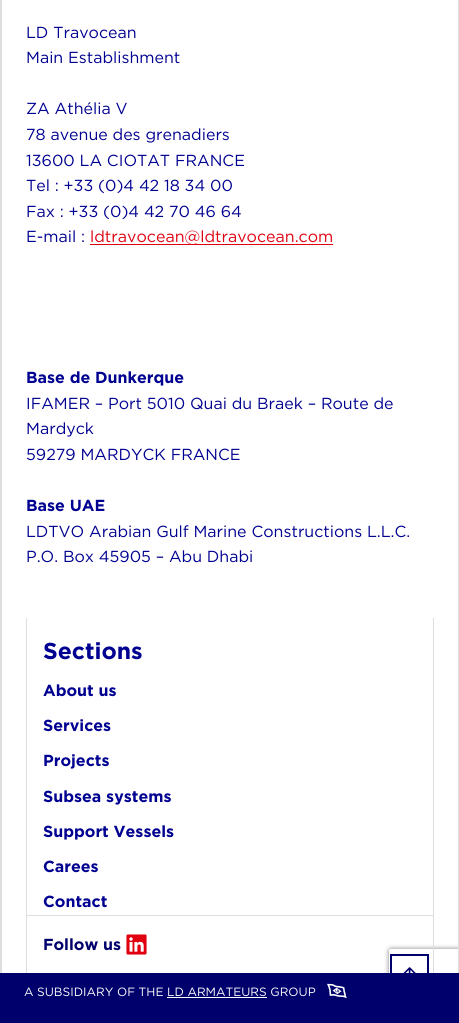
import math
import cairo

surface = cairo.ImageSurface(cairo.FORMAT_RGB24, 459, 1023)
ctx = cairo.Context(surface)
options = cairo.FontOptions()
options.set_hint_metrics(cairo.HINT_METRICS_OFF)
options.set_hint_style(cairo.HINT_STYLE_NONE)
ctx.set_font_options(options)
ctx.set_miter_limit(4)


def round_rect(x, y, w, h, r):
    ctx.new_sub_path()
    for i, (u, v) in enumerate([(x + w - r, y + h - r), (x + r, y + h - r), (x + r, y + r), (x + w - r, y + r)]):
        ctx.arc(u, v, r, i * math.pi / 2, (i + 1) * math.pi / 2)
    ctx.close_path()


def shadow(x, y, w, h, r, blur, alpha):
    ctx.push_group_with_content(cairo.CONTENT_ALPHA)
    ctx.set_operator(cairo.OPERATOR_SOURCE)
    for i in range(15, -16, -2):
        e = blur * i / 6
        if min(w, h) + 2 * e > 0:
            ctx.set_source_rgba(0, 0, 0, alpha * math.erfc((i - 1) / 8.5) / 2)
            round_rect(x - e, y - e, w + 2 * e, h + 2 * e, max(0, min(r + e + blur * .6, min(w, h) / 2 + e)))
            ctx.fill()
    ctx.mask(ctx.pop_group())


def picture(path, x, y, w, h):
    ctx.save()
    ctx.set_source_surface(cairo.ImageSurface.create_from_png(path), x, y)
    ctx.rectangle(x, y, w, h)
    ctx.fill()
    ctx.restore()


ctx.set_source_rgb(1, 1, 1)
ctx.paint()
ctx.save()
ctx.set_fill_rule(cairo.FILL_RULE_EVEN_ODD)
ctx.new_path()
ctx.move_to(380, 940)
ctx.line_to(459, 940)
ctx.line_to(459, 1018)
ctx.line_to(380, 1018)
ctx.close_path()
ctx.move_to(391, 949)
ctx.line_to(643, 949)
ctx.curve_to(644, 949, 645, 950, 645, 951)
ctx.line_to(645, 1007)
ctx.curve_to(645, 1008, 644, 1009, 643, 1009)
ctx.line_to(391, 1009)
ctx.curve_to(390, 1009, 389, 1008, 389, 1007)
ctx.line_to(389, 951)
ctx.curve_to(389, 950, 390, 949, 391, 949)
ctx.close_path()
ctx.clip()
ctx.set_source_rgb(0.502, 0.502, 0.502)
shadow(389, 949, 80, 60, 2, 2.5, 1)
ctx.restore()
ctx.set_source_rgb(0.871, 0.871, 0.871)
ctx.rectangle(458, 0, 1, 973)
ctx.fill()
ctx.rectangle(0, 0, 2, 973)
ctx.fill()
ctx.select_font_face("Gotham")
ctx.set_font_size(16)
ctx.set_source_rgb(0, 0, 0.569)
ctx.move_to(26, 38)
ctx.show_text("LD Travocean")
ctx.move_to(26, 63)
ctx.show_text("Main Establishment")
ctx.move_to(26, 114)
ctx.show_text("ZA Athélia V")
ctx.move_to(26, 140)
ctx.show_text("78 avenue des grenadiers")
ctx.move_to(26, 166)
ctx.show_text("13600 LA CIOTAT FRANCE")
ctx.move_to(26, 191)
ctx.show_text("Tel : +33 (0)4 42 18 34 00")
ctx.move_to(26, 217)
ctx.show_text("Fax : +33 (0)4 42 70 46 64")
ctx.move_to(26, 242)
ctx.show_text("E-mail :")
ctx.set_source_rgb(0.882, 0, 0.059)
ctx.rectangle(90, 244, 243, 1)
ctx.fill()
ctx.move_to(90, 242)
ctx.show_text("ldtravocean@ldtravocean.com")
ctx.select_font_face("Gotham", cairo.FONT_SLANT_NORMAL, cairo.FONT_WEIGHT_BOLD)
ctx.set_source_rgb(0, 0, 0.569)
ctx.move_to(26, 383)
ctx.show_text("Base de Dunkerque")
ctx.select_font_face("Gotham")
ctx.move_to(26, 409)
ctx.show_text("IFAMER – Port 5010 Quai du Braek – Route de")
ctx.move_to(26, 434)
ctx.show_text("Mardyck")
ctx.move_to(26, 460)
ctx.show_text("59279 MARDYCK FRANCE")
ctx.select_font_face("Gotham", cairo.FONT_SLANT_NORMAL, cairo.FONT_WEIGHT_BOLD)
ctx.move_to(26, 511)
ctx.show_text("Base UAE")
ctx.select_font_face("Gotham")
ctx.move_to(26, 537)
ctx.show_text("LDTVO Arabian Gulf Marine Constructions L.L.C.")
ctx.move_to(26, 562)
ctx.show_text("P.O. Box 45905 – Abu Dhabi")
ctx.set_source_rgb(0.871, 0.871, 0.871)
ctx.rectangle(433, 618, 1, 355)
ctx.fill()
ctx.rectangle(26, 618, 1, 355)
ctx.fill()
ctx.select_font_face("Gotham", cairo.FONT_SLANT_NORMAL, cairo.FONT_WEIGHT_BOLD)
ctx.set_font_size(23)
ctx.set_source_rgb(0, 0, 0.569)
ctx.move_to(43, 659)
ctx.show_text("Sections")
ctx.set_font_size(16)
ctx.move_to(43, 696)
ctx.show_text("About us")
ctx.move_to(43, 731)
ctx.show_text("Services")
ctx.move_to(43, 766)
ctx.show_text("Projects")
ctx.move_to(43, 802)
ctx.show_text("Subsea systems")
ctx.move_to(43, 837)
ctx.show_text("Support Vessels")
ctx.move_to(43, 872)
ctx.show_text("Carees")
ctx.move_to(43, 907)
ctx.show_text("Contact")
ctx.set_source_rgb(0.871, 0.871, 0.871)
ctx.rectangle(27, 915, 406, 1)
ctx.fill()
ctx.set_source_rgb(0, 0, 0.427)
ctx.move_to(43, 950)
ctx.show_text("Follow us")
picture("img1.png", 126, 934, 21, 21)
ctx.rectangle(0, 973, 459, 50)
ctx.fill()
ctx.select_font_face("Gotham")
ctx.set_font_size(12)
ctx.set_source_rgb(1, 1, 1)
ctx.move_to(24, 996)
ctx.show_text("A SUBSIDIARY OF THE LD ARMATEURS GROUP")
ctx.rectangle(167, 997, 100, 1)
ctx.fill()
picture("img2.png", 327, 983, 20, 16)
ctx.rectangle(391, 955, 37, 37)
ctx.set_source_rgb(0, 0, 0.427)
ctx.stroke()
picture("img3.png", 403, 967, 13, 6)
surface.write_to_png("page.png")
